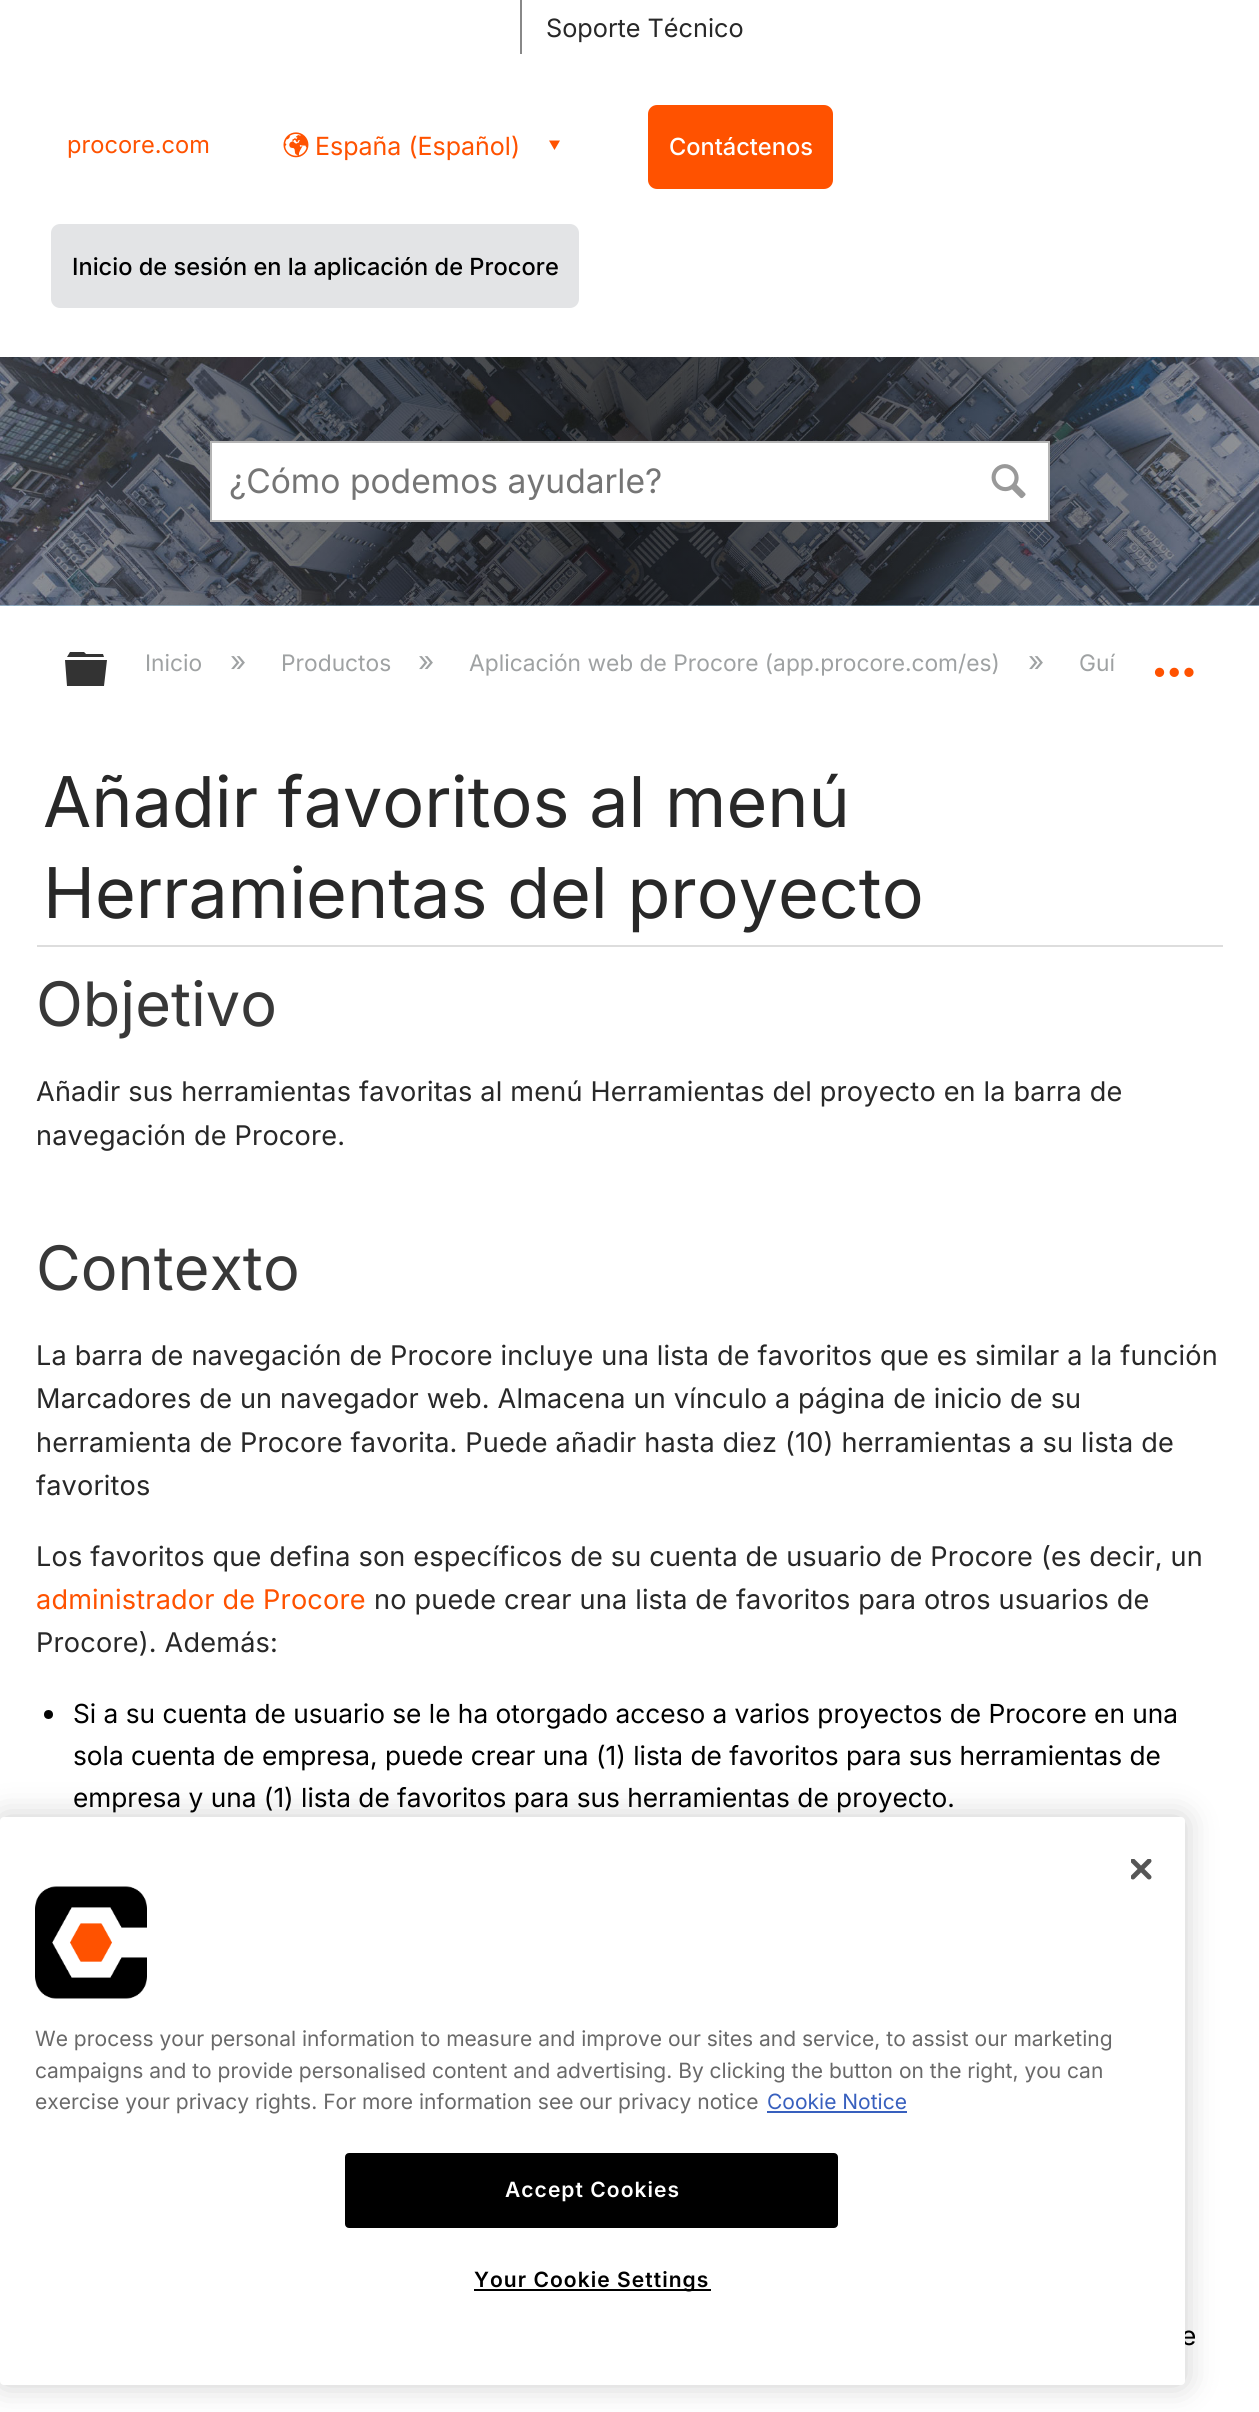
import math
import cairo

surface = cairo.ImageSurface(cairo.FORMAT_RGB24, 1259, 2412)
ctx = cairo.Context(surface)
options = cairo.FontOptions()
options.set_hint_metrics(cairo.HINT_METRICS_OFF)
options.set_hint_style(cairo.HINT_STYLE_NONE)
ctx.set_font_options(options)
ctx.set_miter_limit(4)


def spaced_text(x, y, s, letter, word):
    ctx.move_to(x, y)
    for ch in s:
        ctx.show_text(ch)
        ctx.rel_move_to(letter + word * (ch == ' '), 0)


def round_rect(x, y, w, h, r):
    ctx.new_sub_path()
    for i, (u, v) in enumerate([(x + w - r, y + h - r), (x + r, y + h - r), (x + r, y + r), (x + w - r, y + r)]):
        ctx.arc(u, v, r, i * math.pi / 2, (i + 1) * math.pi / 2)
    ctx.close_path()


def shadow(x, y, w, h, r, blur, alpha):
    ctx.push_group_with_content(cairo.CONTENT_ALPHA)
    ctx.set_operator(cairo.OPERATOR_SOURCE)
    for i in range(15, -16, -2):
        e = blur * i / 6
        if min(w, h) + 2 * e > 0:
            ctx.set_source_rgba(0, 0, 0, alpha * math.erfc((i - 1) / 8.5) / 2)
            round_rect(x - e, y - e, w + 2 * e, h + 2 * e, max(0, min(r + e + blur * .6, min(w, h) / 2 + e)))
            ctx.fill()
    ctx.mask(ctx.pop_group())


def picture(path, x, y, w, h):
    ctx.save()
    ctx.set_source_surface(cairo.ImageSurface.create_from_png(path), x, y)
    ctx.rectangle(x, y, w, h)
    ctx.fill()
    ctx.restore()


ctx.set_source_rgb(1, 1, 1)
ctx.paint()
ctx.select_font_face("Inter")
ctx.set_font_size(25.25)
ctx.set_source_rgb(0.157, 0.157, 0.157)
ctx.move_to(546, 37)
ctx.show_text("Soporte Técnico")
ctx.set_source_rgb(0.533, 0.533, 0.533)
ctx.rectangle(520, 0, 2, 54)
ctx.fill()
ctx.set_font_size(23.6)
ctx.set_source_rgb(1, 0.322, 0)
ctx.move_to(67, 153)
ctx.show_text("procore.com")
picture("img1.png", 283, 132, 26, 26)
ctx.set_font_size(25)
ctx.move_to(315, 155)
ctx.show_text("España (Español)")
ctx.new_path()
ctx.move_to(560, 140.5)
ctx.line_to(549, 140.5)
ctx.line_to(554.5, 150)
ctx.close_path()
ctx.fill()
round_rect(648, 105, 185, 84, 9)
ctx.fill()
ctx.select_font_face("Inter Medium")
ctx.set_font_size(23.6)
ctx.set_source_rgb(1, 1, 1)
ctx.move_to(669, 155)
ctx.show_text("Contáctenos")
ctx.set_source_rgb(0.89, 0.894, 0.902)
round_rect(51, 224, 528, 84, 9)
ctx.fill()
ctx.set_source_rgb(0, 0, 0)
ctx.move_to(72, 275)
ctx.show_text("Inicio de sesión en la aplicación de Procore")
ctx.set_source_rgb(0.718, 0.898, 0.988)
ctx.rectangle(0, 605, 1259, 1)
ctx.fill()
picture("img2.png", 0, 357, 1259, 249)
ctx.set_source_rgb(1, 1, 1)
ctx.rectangle(211, 442, 838, 79)
ctx.fill_preserve()
ctx.set_source_rgb(0.706, 0.706, 0.706)
ctx.stroke()
ctx.select_font_face("Inter")
ctx.set_font_size(33.6)
ctx.set_source_rgb(0.459, 0.459, 0.459)
ctx.move_to(229, 493)
ctx.show_text("¿Cómo podemos ayudarle?")
picture("img3.png", 991, 464, 35, 35)
ctx.set_source_rgb(0.2, 0.2, 0.2)
ctx.new_path()
ctx.move_to(65, 660)
ctx.line_to(107, 660)
ctx.line_to(104, 686)
ctx.line_to(67, 686)
ctx.close_path()
ctx.move_to(103, 654)
ctx.line_to(104, 657)
ctx.line_to(67, 657)
ctx.line_to(70, 652)
ctx.line_to(84, 652)
ctx.line_to(86, 654)
ctx.close_path()
ctx.fill()
ctx.set_font_size(22.75)
ctx.set_source_rgb(0.624, 0.635, 0.639)
ctx.move_to(145, 671)
ctx.show_text("Inicio")
ctx.set_font_size(28)
ctx.move_to(230, 671)
ctx.show_text("»")
ctx.set_font_size(22.75)
ctx.move_to(281, 671)
ctx.show_text("Productos")
ctx.set_font_size(28)
ctx.move_to(418, 671)
ctx.show_text("»")
ctx.set_font_size(22.75)
ctx.move_to(469, 671)
ctx.show_text("Aplicación web de Procore (app.procore.com/es)")
ctx.set_font_size(28)
ctx.move_to(1028, 671)
ctx.show_text("»")
ctx.set_font_size(22.75)
ctx.move_to(1079, 671)
ctx.show_text("Guí")
picture("img4.png", 1154, 667, 40, 10)
ctx.set_source_rgb(0.867, 0.867, 0.867)
ctx.rectangle(37, 945, 1186, 2)
ctx.fill()
ctx.set_font_size(70)
ctx.set_source_rgb(0.157, 0.157, 0.157)
ctx.move_to(43, 827)
ctx.show_text("Añadir favoritos al menú")
ctx.move_to(43, 918)
ctx.show_text("Herramientas del proyecto")
ctx.set_font_size(61.25)
ctx.set_source_rgb(0.22, 0.22, 0.22)
ctx.move_to(36, 1026)
ctx.show_text("Objetivo")
ctx.set_font_size(27.1)
ctx.set_source_rgb(0.157, 0.157, 0.157)
spaced_text(36, 1101, "Añadir sus herramientas favoritas al menú Herramientas del proyecto en la barra de", 0.18, 0)
spaced_text(36, 1145, "navegación de Procore.", 0.18, 0)
ctx.set_font_size(61.25)
ctx.set_source_rgb(0.22, 0.22, 0.22)
ctx.move_to(36, 1290)
ctx.show_text("Contexto")
ctx.set_font_size(27.1)
ctx.set_source_rgb(0.157, 0.157, 0.157)
spaced_text(36, 1365, "La barra de navegación de Procore incluye una lista de favoritos que es similar a la función", 0.18, 0)
spaced_text(36, 1408, "Marcadores de un navegador web. Almacena un vínculo a página de inicio de su", 0.18, 0)
spaced_text(36, 1452, "herramienta de Procore favorita. Puede añadir hasta diez (10) herramientas a su lista de", 0.18, 0)
spaced_text(36, 1495, "favoritos", 0.18, 0)
spaced_text(36, 1566, "Los favoritos que defina son específicos de su cuenta de usuario de Procore (es decir, un", 0.18, 0)
ctx.set_source_rgb(1, 0.322, 0)
spaced_text(36, 1609, "administrador de Procore", 0.18, 0)
ctx.set_source_rgb(0.157, 0.157, 0.157)
spaced_text(374, 1609, "no puede crear una lista de favoritos para otros usuarios de", 0.18, 0)
spaced_text(36, 1652, "Procore). Además:", 0.18, 0)
ctx.set_source_rgb(0.016, 0.016, 0.016)
ctx.new_path()
ctx.arc(48.5, 1714.5, 4.5, 0, 2 * math.pi)
ctx.fill()
ctx.set_font_size(26.25)
ctx.set_source_rgb(0, 0, 0)
ctx.move_to(73, 1723)
ctx.show_text("Si a su cuenta de usuario se le ha otorgado acceso a varios proyectos de Procore en una")
ctx.move_to(73, 1765)
ctx.show_text("sola cuenta de empresa, puede crear una (1) lista de favoritos para sus herramientas de")
ctx.move_to(73, 1807)
ctx.show_text("empresa y una (1) lista de favoritos para sus herramientas de proyecto.")
ctx.move_to(1181, 2345)
ctx.show_text("e")
ctx.set_source_rgb(0, 0, 0)
shadow(0, 1817, 1185, 568, 4, 16, 0.2)
ctx.set_source_rgb(1, 1, 1)
round_rect(0, 1817, 1185, 568, 4)
ctx.fill()
picture("img5.png", 1131, 1859, 21, 21)
picture("img6.png", 35, 1886, 112, 113)
ctx.set_font_size(21)
ctx.set_source_rgb(0.412, 0.412, 0.412)
ctx.move_to(35, 2046)
ctx.show_text("We process your personal information to measure and improve our sites and service, to assist our marketing")
ctx.move_to(35, 2078)
ctx.show_text("campaigns and to provide personalised content and advertising. By clicking the button on the right, you can")
ctx.move_to(35, 2109)
ctx.show_text("exercise your privacy rights. For more information see our privacy notice")
ctx.set_source_rgb(0.22, 0.376, 0.745)
ctx.move_to(767, 2109)
ctx.show_text("Cookie Notice")
ctx.rectangle(767, 2111, 140, 2)
ctx.fill()
ctx.set_source_rgb(0, 0, 0)
round_rect(346, 2154, 491, 73, 3)
ctx.fill_preserve()
ctx.stroke()
ctx.select_font_face("Inter SemiBold")
ctx.set_source_rgb(1, 1, 1)
spaced_text(505, 2197, "Accept Cookies", 1.05, 0)
ctx.set_source_rgb(0, 0, 0)
ctx.rectangle(474, 2289, 237, 2)
ctx.fill()
spaced_text(474, 2287, "Your Cookie Settings", 1.05, 0)
surface.write_to_png("page.png")
